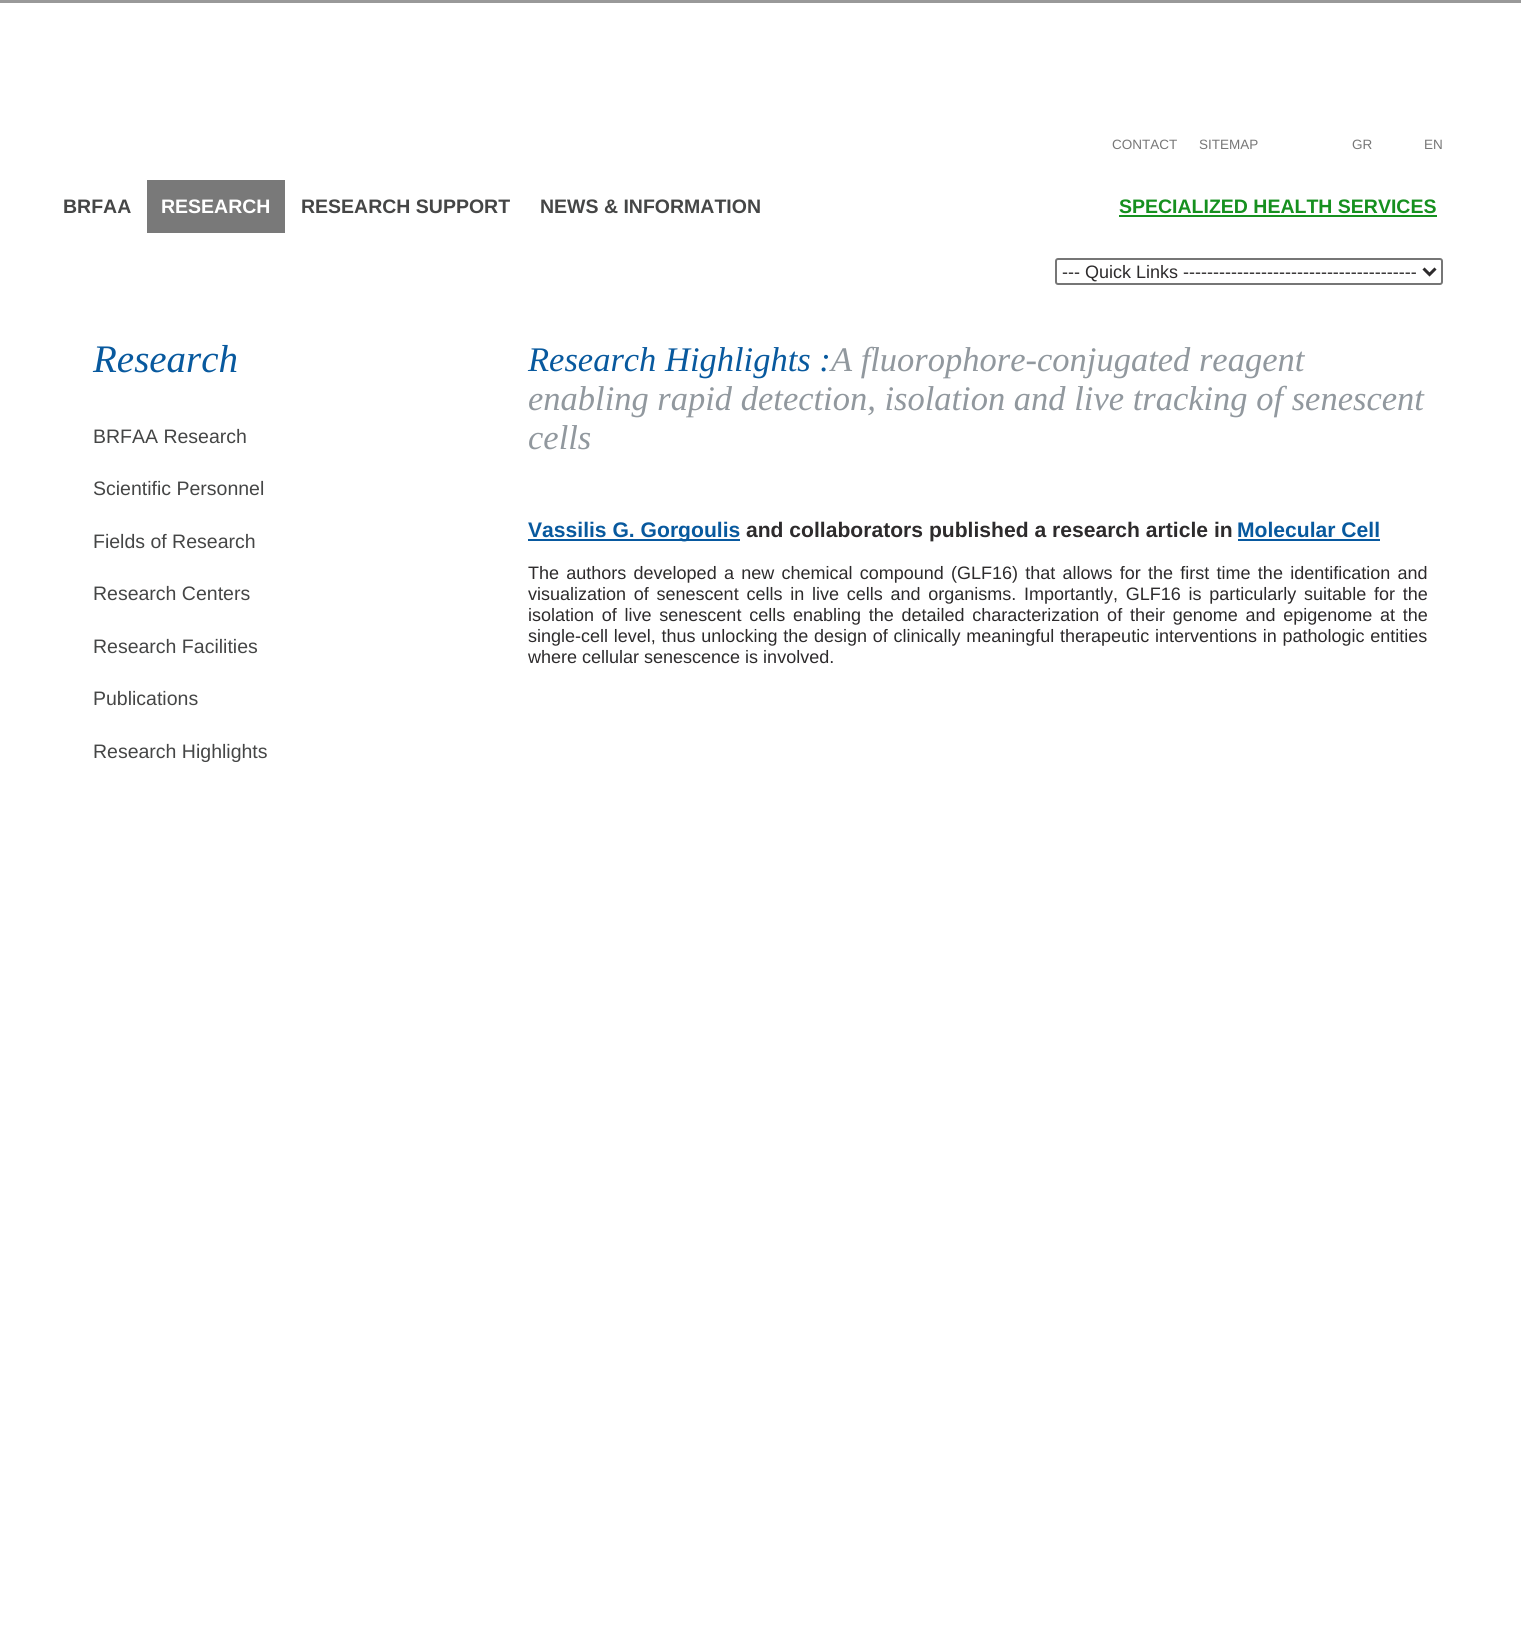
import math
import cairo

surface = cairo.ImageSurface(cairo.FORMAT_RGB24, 1521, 1629)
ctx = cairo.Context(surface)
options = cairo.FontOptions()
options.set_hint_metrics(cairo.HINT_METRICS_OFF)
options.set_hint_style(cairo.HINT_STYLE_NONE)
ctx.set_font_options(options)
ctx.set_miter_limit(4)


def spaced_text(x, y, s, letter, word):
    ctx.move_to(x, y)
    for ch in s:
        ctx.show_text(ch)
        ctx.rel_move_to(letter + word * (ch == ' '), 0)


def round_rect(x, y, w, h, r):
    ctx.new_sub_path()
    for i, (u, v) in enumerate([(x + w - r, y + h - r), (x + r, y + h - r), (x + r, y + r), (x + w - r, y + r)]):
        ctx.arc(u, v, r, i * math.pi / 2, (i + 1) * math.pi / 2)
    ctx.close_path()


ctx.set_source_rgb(1, 1, 1)
ctx.paint()
ctx.set_source_rgb(0.6, 0.6, 0.6)
ctx.rectangle(0, 0, 1521, 3)
ctx.fill()
ctx.select_font_face("Liberation Sans")
ctx.set_font_size(13.5)
ctx.set_source_rgb(0.467, 0.467, 0.467)
ctx.move_to(1112, 149)
ctx.show_text("CONTACT")
ctx.move_to(1199, 149)
ctx.show_text("SITEMAP")
ctx.move_to(1352, 149)
ctx.show_text("GR")
ctx.move_to(1424, 149)
ctx.show_text("EN")
ctx.select_font_face("Liberation Sans", cairo.FONT_SLANT_NORMAL, cairo.FONT_WEIGHT_BOLD)
ctx.set_font_size(19.5)
ctx.set_source_rgb(0.271, 0.275, 0.275)
ctx.move_to(63, 213)
ctx.show_text("BRFAA")
ctx.set_source_rgb(0.475, 0.475, 0.475)
ctx.rectangle(147, 180, 138, 53)
ctx.fill()
ctx.set_source_rgb(1, 1, 1)
ctx.move_to(161, 213)
ctx.show_text("RESEARCH")
ctx.set_source_rgb(0.271, 0.275, 0.275)
ctx.move_to(301, 213)
ctx.show_text("RESEARCH SUPPORT")
ctx.move_to(540, 213)
ctx.show_text("NEWS & INFORMATION")
ctx.set_source_rgb(0.086, 0.565, 0.122)
ctx.move_to(1119, 213)
ctx.show_text("SPECIALIZED HEALTH SERVICES")
ctx.rectangle(1119, 215, 318, 2)
ctx.fill()
round_rect(1056, 259, 386, 25, 2)
ctx.set_source_rgb(0.463, 0.463, 0.463)
ctx.stroke()
ctx.new_path()
ctx.move_to(1423.5, 268.5)
ctx.line_to(1429.5, 274.5)
ctx.line_to(1435.5, 268.5)
ctx.set_source_rgb(0.176, 0.169, 0.173)
ctx.set_line_width(3)
ctx.stroke()
ctx.select_font_face("Liberation Sans")
ctx.set_font_size(18)
ctx.move_to(1062, 278)
ctx.show_text("--- Quick Links ---------------------------------------")
ctx.select_font_face("Liberation Serif", cairo.FONT_SLANT_ITALIC)
ctx.set_font_size(39)
ctx.set_source_rgb(0.035, 0.349, 0.62)
ctx.move_to(93, 372)
ctx.show_text("Research")
ctx.select_font_face("Liberation Sans")
ctx.set_font_size(19.5)
ctx.set_source_rgb(0.271, 0.275, 0.275)
ctx.move_to(93, 443)
ctx.show_text("BRFAA Research")
ctx.move_to(93, 495)
ctx.show_text("Scientific Personnel")
ctx.move_to(93, 548)
ctx.show_text("Fields of Research")
ctx.move_to(93, 600)
ctx.show_text("Research Centers")
ctx.move_to(93, 653)
ctx.show_text("Research Facilities")
ctx.move_to(93, 705)
ctx.show_text("Publications")
ctx.move_to(93, 758)
ctx.show_text("Research Highlights")
ctx.select_font_face("Liberation Serif", cairo.FONT_SLANT_ITALIC)
ctx.set_font_size(34.5)
ctx.set_source_rgb(0.035, 0.349, 0.62)
ctx.move_to(528, 371)
ctx.show_text("Research Highlights :")
ctx.set_source_rgb(0.569, 0.596, 0.62)
ctx.move_to(831, 371)
ctx.show_text("A fluorophore-conjugated reagent")
ctx.move_to(528, 410)
ctx.show_text("enabling rapid detection, isolation and live tracking of senescent")
ctx.move_to(528, 449)
ctx.show_text("cells")
ctx.set_source_rgb(0.035, 0.349, 0.627)
ctx.rectangle(528, 539, 212, 2)
ctx.fill()
ctx.select_font_face("Liberation Sans", cairo.FONT_SLANT_NORMAL, cairo.FONT_WEIGHT_BOLD)
ctx.set_font_size(21.1)
ctx.set_source_rgb(0.035, 0.349, 0.62)
ctx.move_to(528, 537)
ctx.show_text("Vassilis G. Gorgoulis")
ctx.set_source_rgb(0.176, 0.169, 0.173)
ctx.move_to(746, 537)
ctx.show_text("and collaborators published a research article in")
ctx.set_source_rgb(0.035, 0.349, 0.62)
ctx.move_to(1237, 537)
ctx.show_text("Molecular Cell")
ctx.set_source_rgb(0.035, 0.349, 0.627)
ctx.rectangle(1238, 539, 142, 2)
ctx.fill()
ctx.select_font_face("Liberation Sans")
ctx.set_font_size(18)
ctx.set_source_rgb(0.176, 0.169, 0.173)
spaced_text(528, 579, "The authors developed a new chemical compound (GLF16) that allows for the first time the identification and", 0, 2.25)
spaced_text(528, 600, "visualization of senescent cells in live cells and organisms. Importantly, GLF16 is particularly suitable for the", 0, 2.75)
spaced_text(528, 621, "isolation of live senescent cells enabling the detailed characterization of their genome and epigenome at the", 0, 2.75)
spaced_text(528, 642, "single-cell level, thus unlocking the design of clinically meaningful therapeutic interventions in pathologic entities", 0, 0.75)
ctx.move_to(528, 663)
ctx.show_text("where cellular senescence is involved.")
surface.write_to_png("page.png")
